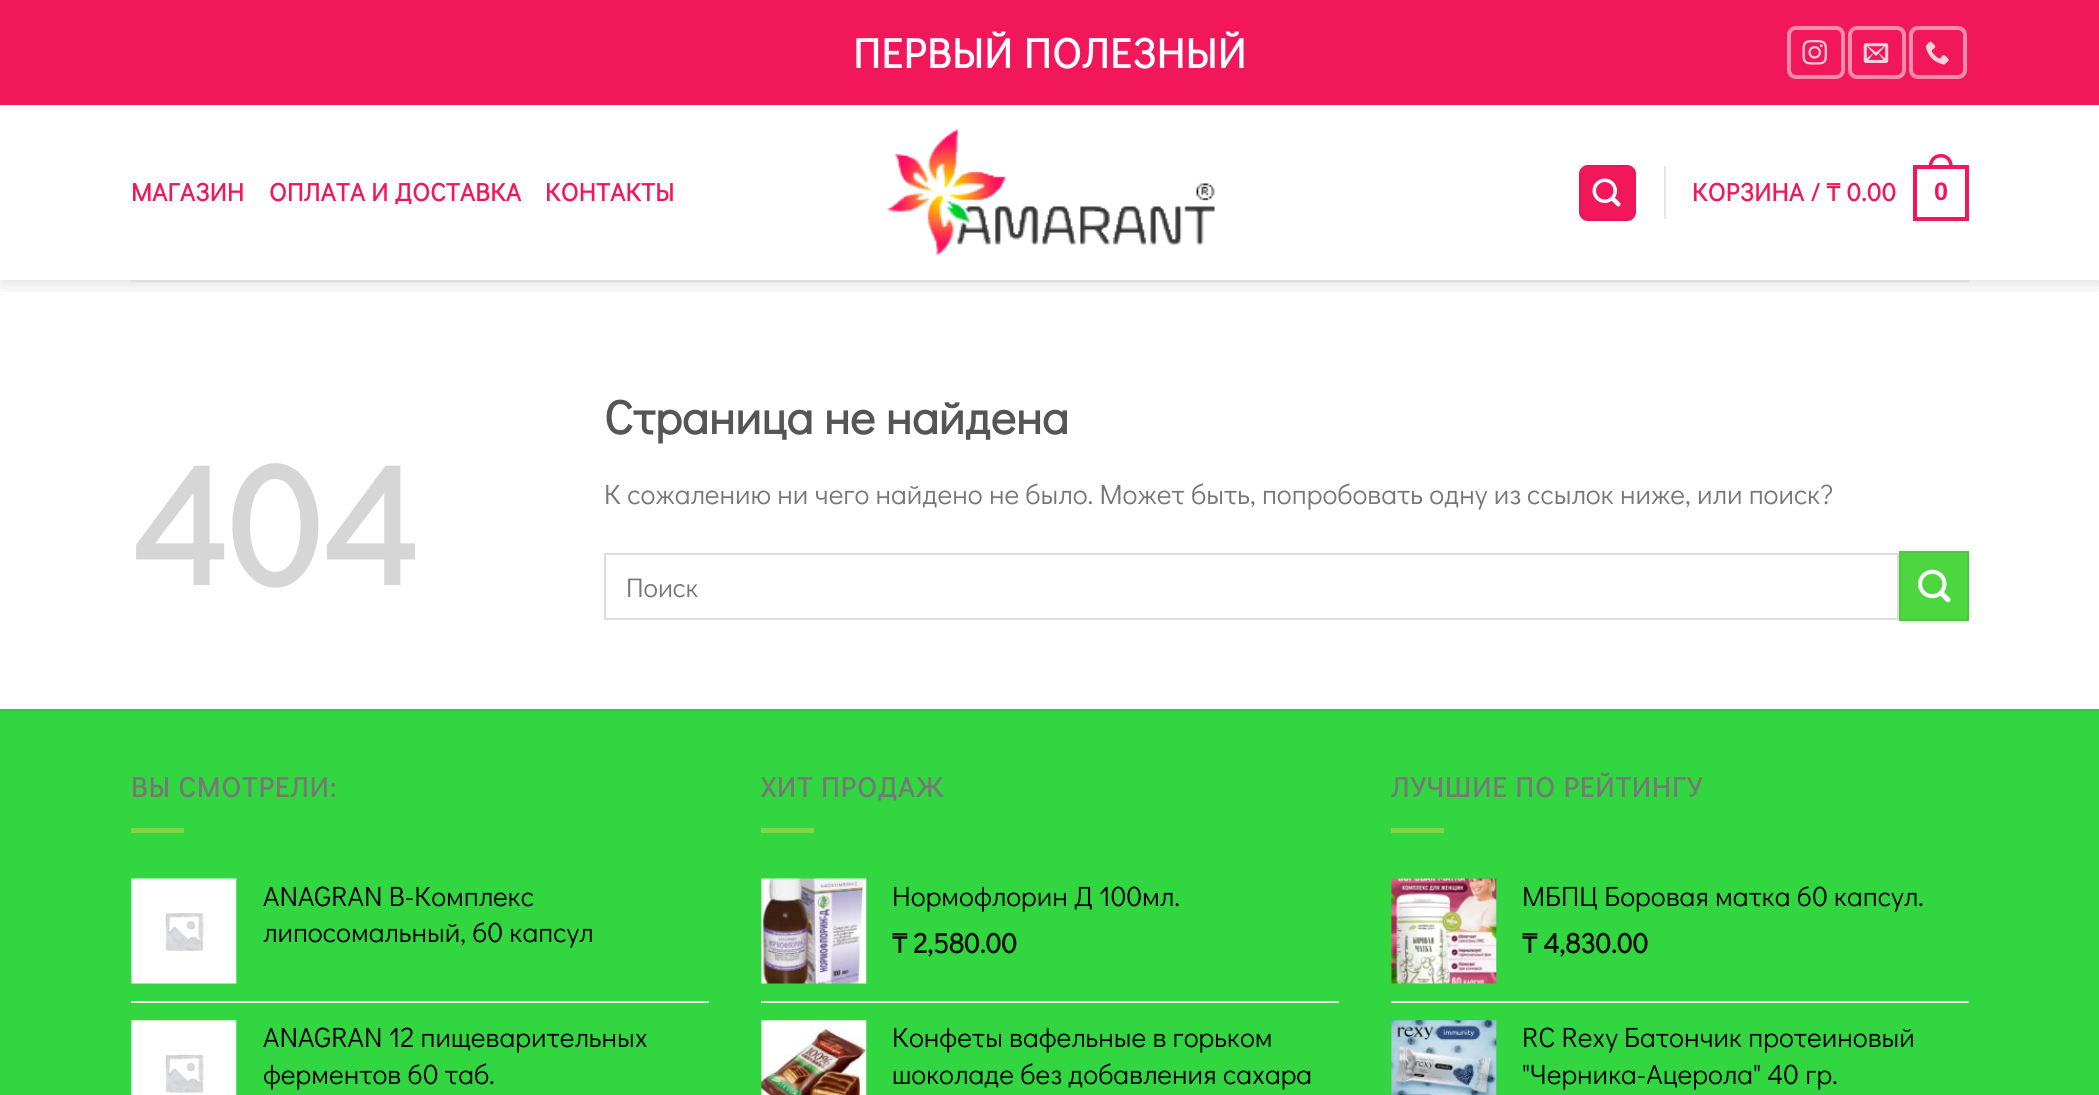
import math
import cairo

surface = cairo.ImageSurface(cairo.FORMAT_RGB24, 2099, 1095)
ctx = cairo.Context(surface)
options = cairo.FontOptions()
options.set_hint_metrics(cairo.HINT_METRICS_OFF)
options.set_hint_style(cairo.HINT_STYLE_NONE)
ctx.set_font_options(options)
ctx.set_miter_limit(4)


def spaced_text(x, y, s, letter, word):
    ctx.move_to(x, y)
    for ch in s:
        ctx.show_text(ch)
        ctx.rel_move_to(letter + word * (ch == ' '), 0)


def round_rect(x, y, w, h, r):
    ctx.new_sub_path()
    for i, (u, v) in enumerate([(x + w - r, y + h - r), (x + r, y + h - r), (x + r, y + r), (x + w - r, y + r)]):
        ctx.arc(u, v, r, i * math.pi / 2, (i + 1) * math.pi / 2)
    ctx.close_path()


def shadow(x, y, w, h, r, blur, alpha):
    ctx.push_group_with_content(cairo.CONTENT_ALPHA)
    ctx.set_operator(cairo.OPERATOR_SOURCE)
    for i in range(15, -16, -2):
        e = blur * i / 6
        if min(w, h) + 2 * e > 0:
            ctx.set_source_rgba(0, 0, 0, alpha * math.erfc((i - 1) / 8.5) / 2)
            round_rect(x - e, y - e, w + 2 * e, h + 2 * e, max(0, min(r + e + blur * .6, min(w, h) / 2 + e)))
            ctx.fill()
    ctx.mask(ctx.pop_group())


def picture(path, x, y, w, h):
    ctx.save()
    ctx.set_source_surface(cairo.ImageSurface.create_from_png(path), x, y)
    ctx.rectangle(x, y, w, h)
    ctx.fill()
    ctx.restore()


ctx.set_source_rgb(1, 1, 1)
ctx.paint()
ctx.save()
ctx.rectangle(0, 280, 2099, 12)
ctx.clip()
ctx.set_source_rgb(0, 0, 0)
shadow(2, 2, 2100, 280, 0, 9, 0.15)
ctx.restore()
ctx.set_source_rgb(0.949, 0.09, 0.357)
ctx.rectangle(0, 0, 2099, 105)
ctx.fill()
ctx.select_font_face("Didact Gothic", cairo.FONT_SLANT_NORMAL, cairo.FONT_WEIGHT_BOLD)
ctx.set_font_size(42)
ctx.set_source_rgb(1, 1, 1)
spaced_text(853, 68, "ПЕРВЫЙ ПОЛЕЗНЫЙ", 1, 0)
round_rect(1789, 28, 54, 49, 7)
ctx.set_source_rgb(0.976, 0.545, 0.678)
ctx.set_line_width(4)
ctx.stroke()
picture("img1.png", 1802, 40, 25, 25)
round_rect(1850, 28, 54, 49, 7)
ctx.stroke()
picture("img2.png", 1863, 43, 26, 20)
round_rect(1911, 28, 54, 49, 7)
ctx.stroke()
picture("img3.png", 1925, 41, 24, 24)
ctx.set_font_size(25.25)
ctx.set_source_rgb(0.949, 0.09, 0.357)
spaced_text(131, 201, "МАГАЗИН", 0.5, 0)
spaced_text(269, 201, "ОПЛАТА И ДОСТАВКА", 0.5, 0)
spaced_text(545, 201, "КОНТАКТЫ", 0.5, 0)
picture("img4.png", 887, 129, 328, 127)
round_rect(1579, 165, 57, 56, 9)
ctx.fill()
ctx.rectangle(1580, 166, 55, 54)
ctx.set_source_rgba(0, 0, 0, 0.05)
ctx.set_line_width(2)
ctx.stroke()
picture("img5.png", 1592, 178, 29, 29)
ctx.set_source_rgb(0.902, 0.902, 0.902)
ctx.rectangle(1664, 166, 2, 53)
ctx.fill()
ctx.set_source_rgb(0.949, 0.09, 0.357)
spaced_text(1692, 201, "КОРЗИНА / ₸ 0.00", 0.5, 0)
ctx.rectangle(1915, 167, 52, 52)
ctx.set_line_width(4)
ctx.stroke()
ctx.set_fill_rule(cairo.FILL_RULE_EVEN_ODD)
ctx.new_path()
ctx.move_to(1941, 154)
ctx.curve_to(1949, 154, 1953, 160.5, 1953, 168)
ctx.line_to(1928.5, 168)
ctx.curve_to(1928.5, 160.5, 1932.5, 154, 1941, 154)
ctx.close_path()
ctx.move_to(1941, 157.5)
ctx.curve_to(1947, 157.5, 1949.5, 162.5, 1949.5, 168)
ctx.line_to(1932, 168)
ctx.curve_to(1932, 162.5, 1934.5, 157.5, 1941, 157.5)
ctx.close_path()
ctx.fill()
ctx.select_font_face("Liberation Sans", cairo.FONT_SLANT_NORMAL, cairo.FONT_WEIGHT_BOLD)
spaced_text(1934, 200, "0", 0.5, 0)
ctx.set_source_rgb(0.875, 0.875, 0.875)
ctx.rectangle(131, 280, 1838, 2)
ctx.fill()
ctx.select_font_face("Didact Gothic", cairo.FONT_SLANT_NORMAL, cairo.FONT_WEIGHT_BOLD)
ctx.set_font_size(168)
ctx.set_source_rgb(0.839, 0.839, 0.839)
ctx.move_to(131, 585)
ctx.show_text("404")
ctx.set_font_size(47.5)
ctx.set_source_rgb(0.333, 0.333, 0.333)
ctx.move_to(604, 434)
ctx.show_text("Страница не найдена")
ctx.select_font_face("Didact Gothic")
ctx.set_font_size(28)
ctx.set_source_rgb(0.467, 0.467, 0.467)
ctx.move_to(604, 504)
ctx.show_text("К сожалению ни чего найдено не было. Может быть, попробовать одну из ссылок ниже, или поиск?")
ctx.rectangle(605, 554, 1293, 65)
ctx.set_source_rgb(0.867, 0.867, 0.867)
ctx.set_line_width(2)
ctx.stroke()
ctx.set_font_size(27)
ctx.set_source_rgb(0.467, 0.467, 0.467)
ctx.move_to(626, 597)
ctx.show_text("Поиск")
ctx.set_source_rgb(0.306, 0.839, 0.255)
ctx.rectangle(1900, 552, 68, 68)
ctx.fill_preserve()
ctx.set_source_rgb(0.29, 0.796, 0.243)
ctx.stroke()
picture("img6.png", 1918, 569, 33, 34)
ctx.set_source_rgb(0.192, 0.839, 0.255)
ctx.rectangle(0, 711, 2099, 384)
ctx.fill()
ctx.set_source_rgb(0.184, 0.796, 0.243)
ctx.rectangle(0, 709, 2099, 2)
ctx.fill()
ctx.select_font_face("Didact Gothic", cairo.FONT_SLANT_NORMAL, cairo.FONT_WEIGHT_BOLD)
ctx.set_font_size(28)
ctx.set_source_rgb(0.467, 0.467, 0.467)
spaced_text(131, 797, "ВЫ СМОТРЕЛИ:", 1.4, 0)
ctx.set_source_rgb(0.506, 0.843, 0.259)
ctx.rectangle(131, 828, 53, 5)
ctx.fill()
picture("img7.png", 131, 878, 106, 106)
ctx.select_font_face("Didact Gothic")
ctx.set_source_rgb(0.008, 0.008, 0.008)
ctx.move_to(263, 906)
ctx.show_text("ANAGRAN B-Комплекс")
ctx.move_to(263, 942)
ctx.show_text("липосомальный, 60 капсул")
ctx.set_source_rgb(0.925, 0.925, 0.925)
ctx.rectangle(131, 1001, 578, 2)
ctx.fill()
picture("img8.png", 131, 1020, 106, 75)
ctx.set_source_rgb(0.008, 0.008, 0.008)
ctx.move_to(263, 1047)
ctx.show_text("ANAGRAN 12 пищеварительных")
ctx.move_to(263, 1084)
ctx.show_text("ферментов 60 таб.")
ctx.select_font_face("Didact Gothic", cairo.FONT_SLANT_NORMAL, cairo.FONT_WEIGHT_BOLD)
ctx.set_source_rgb(0.467, 0.467, 0.467)
spaced_text(761, 797, "ХИТ ПРОДАЖ", 1.4, 0)
ctx.set_source_rgb(0.506, 0.843, 0.259)
ctx.rectangle(761, 828, 53, 5)
ctx.fill()
picture("img9.png", 761, 878, 106, 106)
ctx.select_font_face("Didact Gothic")
ctx.set_source_rgb(0.008, 0.008, 0.008)
ctx.move_to(892, 906)
ctx.show_text("Нормофлорин Д 100мл.")
ctx.select_font_face("Didact Gothic", cairo.FONT_SLANT_NORMAL, cairo.FONT_WEIGHT_BOLD)
ctx.set_source_rgb(0.067, 0.067, 0.067)
ctx.move_to(892, 953)
ctx.show_text("₸ 2,580.00")
ctx.set_source_rgb(0.925, 0.925, 0.925)
ctx.rectangle(761, 1001, 578, 2)
ctx.fill()
picture("img10.png", 761, 1020, 106, 75)
ctx.select_font_face("Didact Gothic")
ctx.set_source_rgb(0.008, 0.008, 0.008)
ctx.move_to(892, 1047)
ctx.show_text("Конфеты вафельные в горьком")
ctx.move_to(892, 1084)
ctx.show_text("шоколаде без добавления сахара")
ctx.select_font_face("Didact Gothic", cairo.FONT_SLANT_NORMAL, cairo.FONT_WEIGHT_BOLD)
ctx.set_source_rgb(0.467, 0.467, 0.467)
spaced_text(1391, 797, "ЛУЧШИЕ ПО РЕЙТИНГУ", 1.4, 0)
ctx.set_source_rgb(0.506, 0.843, 0.259)
ctx.rectangle(1391, 828, 53, 5)
ctx.fill()
picture("img11.png", 1391, 878, 106, 106)
ctx.select_font_face("Didact Gothic")
ctx.set_source_rgb(0.008, 0.008, 0.008)
ctx.move_to(1522, 906)
ctx.show_text("МБПЦ Боровая матка 60 капсул.")
ctx.select_font_face("Didact Gothic", cairo.FONT_SLANT_NORMAL, cairo.FONT_WEIGHT_BOLD)
ctx.set_source_rgb(0.067, 0.067, 0.067)
ctx.move_to(1522, 953)
ctx.show_text("₸ 4,830.00")
ctx.set_source_rgb(0.925, 0.925, 0.925)
ctx.rectangle(1391, 1001, 578, 2)
ctx.fill()
picture("img12.png", 1391, 1020, 106, 75)
ctx.select_font_face("Didact Gothic")
ctx.set_source_rgb(0.008, 0.008, 0.008)
ctx.move_to(1522, 1047)
ctx.show_text("RC Rexy Батончик протеиновый")
ctx.move_to(1522, 1084)
ctx.show_text("\"Черника-Ацерола\" 40 гр.")
surface.write_to_png("page.png")
